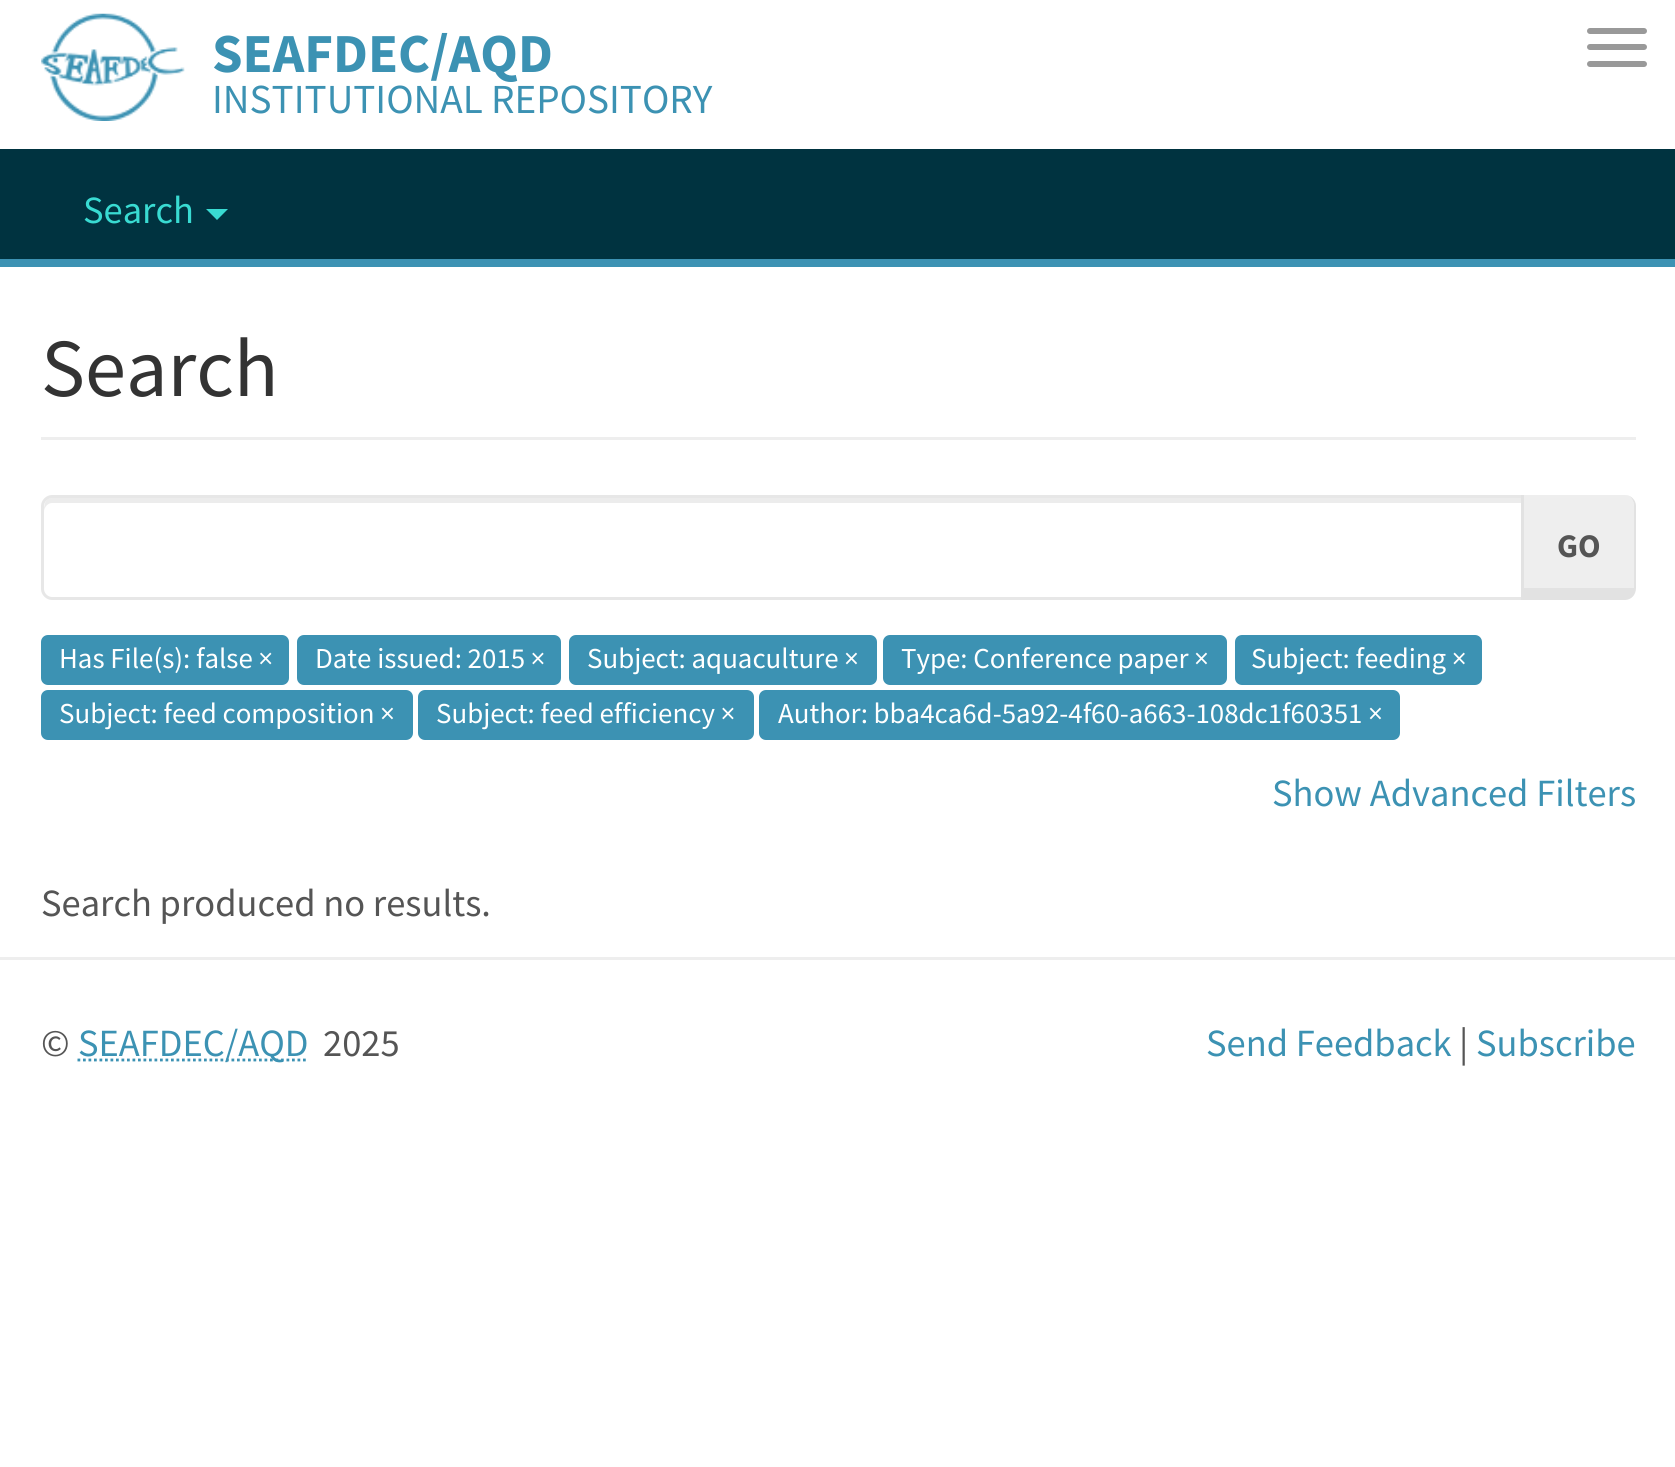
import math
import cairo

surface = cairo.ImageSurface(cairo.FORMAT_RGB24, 1675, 1467)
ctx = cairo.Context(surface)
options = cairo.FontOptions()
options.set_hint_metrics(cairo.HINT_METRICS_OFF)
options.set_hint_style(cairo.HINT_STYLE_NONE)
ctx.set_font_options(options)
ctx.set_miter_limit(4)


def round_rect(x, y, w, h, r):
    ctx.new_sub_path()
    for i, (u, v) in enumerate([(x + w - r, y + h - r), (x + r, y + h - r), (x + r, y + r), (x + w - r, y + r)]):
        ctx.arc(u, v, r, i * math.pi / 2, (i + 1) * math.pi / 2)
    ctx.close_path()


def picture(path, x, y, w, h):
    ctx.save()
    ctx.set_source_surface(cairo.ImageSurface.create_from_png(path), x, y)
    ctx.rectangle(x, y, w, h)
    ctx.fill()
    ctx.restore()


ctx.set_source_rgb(1, 1, 1)
ctx.paint()
picture("img1.png", 41, 13, 144, 108)
ctx.select_font_face("Source Sans Pro", cairo.FONT_SLANT_NORMAL, cairo.FONT_WEIGHT_BOLD)
ctx.set_font_size(55)
ctx.set_source_rgb(0.235, 0.573, 0.702)
ctx.move_to(212, 72)
ctx.show_text("SEAFDEC/AQD")
ctx.set_source_rgb(0.6, 0.6, 0.6)
round_rect(1587, 28, 60, 6, 3)
ctx.fill()
round_rect(1587, 44, 60, 6, 3)
ctx.fill()
round_rect(1587, 61, 60, 6, 3)
ctx.fill()
ctx.select_font_face("Source Sans Pro")
ctx.set_font_size(41.25)
ctx.set_source_rgb(0.235, 0.573, 0.702)
ctx.move_to(212, 113)
ctx.show_text("INSTITUTIONAL REPOSITORY")
ctx.set_source_rgb(0, 0.2, 0.251)
ctx.rectangle(0, 149, 1675, 110)
ctx.fill()
ctx.set_source_rgb(0.235, 0.573, 0.702)
ctx.rectangle(0, 259, 1675, 8)
ctx.fill()
ctx.set_font_size(38.5)
ctx.set_source_rgb(0.224, 0.859, 0.824)
ctx.move_to(83, 223)
ctx.show_text("Search")
ctx.new_path()
ctx.move_to(206, 209)
ctx.line_to(228, 209)
ctx.line_to(217, 220)
ctx.close_path()
ctx.fill()
ctx.set_source_rgb(0.933, 0.933, 0.933)
ctx.rectangle(41, 437, 1595, 3)
ctx.fill()
ctx.set_font_size(82.5)
ctx.set_source_rgb(0.2, 0.2, 0.2)
ctx.move_to(41, 396)
ctx.show_text("Search")
ctx.set_source_rgb(0.925, 0.925, 0.925)
ctx.new_path()
ctx.move_to(52, 503)
ctx.line_to(1521, 503)
ctx.line_to(1521, 498)
ctx.line_to(52, 498)
ctx.curve_to(44, 498, 44, 506, 44, 512)
ctx.curve_to(44, 507, 48, 503, 52, 503)
ctx.close_path()
ctx.fill()
ctx.new_path()
ctx.move_to(52, 496.5)
ctx.line_to(1522.5, 496.5)
ctx.line_to(1522.5, 598.5)
ctx.line_to(52, 598.5)
ctx.curve_to(47, 598.5, 42.5, 594, 42.5, 589)
ctx.line_to(42.5, 506)
ctx.curve_to(42.5, 501, 47, 496.5, 52, 496.5)
ctx.close_path()
ctx.set_source_rgb(0.906, 0.906, 0.906)
ctx.set_line_width(3)
ctx.stroke()
ctx.set_source_rgb(0.933, 0.933, 0.933)
ctx.new_path()
ctx.move_to(1524, 495)
ctx.line_to(1625, 495)
ctx.curve_to(1630, 495, 1634, 500, 1634, 506)
ctx.line_to(1634, 588)
ctx.line_to(1524, 588)
ctx.close_path()
ctx.fill()
ctx.set_source_rgb(0.886, 0.886, 0.886)
ctx.set_fill_rule(cairo.FILL_RULE_EVEN_ODD)
ctx.new_path()
ctx.move_to(1521, 495)
ctx.line_to(1625, 495)
ctx.curve_to(1631, 495, 1636, 500, 1636, 506)
ctx.line_to(1636, 588)
ctx.curve_to(1636, 595, 1631, 600, 1625, 600)
ctx.line_to(1521, 600)
ctx.close_path()
ctx.move_to(1524, 495)
ctx.line_to(1625, 495)
ctx.curve_to(1630, 495, 1634, 500, 1634, 506)
ctx.line_to(1634, 588)
ctx.line_to(1524, 588)
ctx.close_path()
ctx.fill()
ctx.select_font_face("Source Sans Pro", cairo.FONT_SLANT_NORMAL, cairo.FONT_WEIGHT_BOLD)
ctx.set_font_size(33)
ctx.set_source_rgb(0.333, 0.333, 0.333)
ctx.move_to(1557, 557)
ctx.show_text("GO")
ctx.set_source_rgb(0.235, 0.573, 0.702)
round_rect(41, 635, 248, 50, 7)
ctx.fill()
ctx.select_font_face("Source Sans Pro")
ctx.set_font_size(28.9)
ctx.set_source_rgb(1, 1, 1)
ctx.move_to(59, 668)
ctx.show_text("Has File(s): false ×")
ctx.set_source_rgb(0.235, 0.573, 0.702)
round_rect(297, 635, 264, 50, 7)
ctx.fill()
ctx.set_source_rgb(1, 1, 1)
ctx.move_to(315, 668)
ctx.show_text("Date issued: 2015 ×")
ctx.set_source_rgb(0.235, 0.573, 0.702)
round_rect(569, 635, 308, 50, 7)
ctx.fill()
ctx.set_source_rgb(1, 1, 1)
ctx.move_to(587, 668)
ctx.show_text("Subject: aquaculture ×")
ctx.set_source_rgb(0.235, 0.573, 0.702)
round_rect(883, 635, 344, 50, 7)
ctx.fill()
ctx.set_source_rgb(1, 1, 1)
ctx.move_to(901, 668)
ctx.show_text("Type: Conference paper ×")
ctx.set_source_rgb(0.235, 0.573, 0.702)
round_rect(1235, 635, 247, 50, 7)
ctx.fill()
ctx.set_source_rgb(1, 1, 1)
ctx.move_to(1251, 668)
ctx.show_text("Subject: feeding ×")
ctx.set_source_rgb(0.235, 0.573, 0.702)
round_rect(41, 690, 372, 50, 7)
ctx.fill()
ctx.set_source_rgb(1, 1, 1)
ctx.move_to(59, 723)
ctx.show_text("Subject: feed composition ×")
ctx.set_source_rgb(0.235, 0.573, 0.702)
round_rect(418, 690, 336, 50, 7)
ctx.fill()
ctx.set_source_rgb(1, 1, 1)
ctx.move_to(436, 723)
ctx.show_text("Subject: feed efficiency ×")
ctx.set_source_rgb(0.235, 0.573, 0.702)
round_rect(759, 690, 641, 50, 7)
ctx.fill()
ctx.set_source_rgb(1, 1, 1)
ctx.move_to(778, 723)
ctx.show_text("Author: bba4ca6d-5a92-4f60-a663-108dc1f60351 ×")
ctx.set_font_size(38.5)
ctx.set_source_rgb(0.235, 0.573, 0.702)
ctx.move_to(1272, 806)
ctx.show_text("Show Advanced Filters")
ctx.set_source_rgb(0.333, 0.333, 0.333)
ctx.move_to(41, 916)
ctx.show_text("Search produced no results.")
ctx.set_source_rgb(0.933, 0.933, 0.933)
ctx.rectangle(0, 957, 1675, 3)
ctx.fill()
ctx.set_source_rgb(0.333, 0.333, 0.333)
ctx.move_to(41, 1056)
ctx.show_text("©")
ctx.new_path()
ctx.move_to(77.5, 1060)
ctx.line_to(308, 1060)
ctx.set_source_rgb(0.235, 0.573, 0.702)
ctx.set_line_width(2.8)
ctx.set_dash([2.75, 2.75])
ctx.stroke()
ctx.move_to(78, 1056)
ctx.show_text("SEAFDEC/AQD")
ctx.set_source_rgb(0.333, 0.333, 0.333)
ctx.move_to(323, 1056)
ctx.show_text("2025")
ctx.set_source_rgb(0.235, 0.573, 0.702)
ctx.move_to(1206, 1056)
ctx.show_text("Send Feedback")
ctx.set_source_rgb(0.333, 0.333, 0.333)
ctx.move_to(1459, 1056)
ctx.show_text("|")
ctx.set_source_rgb(0.235, 0.573, 0.702)
ctx.move_to(1476, 1056)
ctx.show_text("Subscribe")
surface.write_to_png("page.png")
